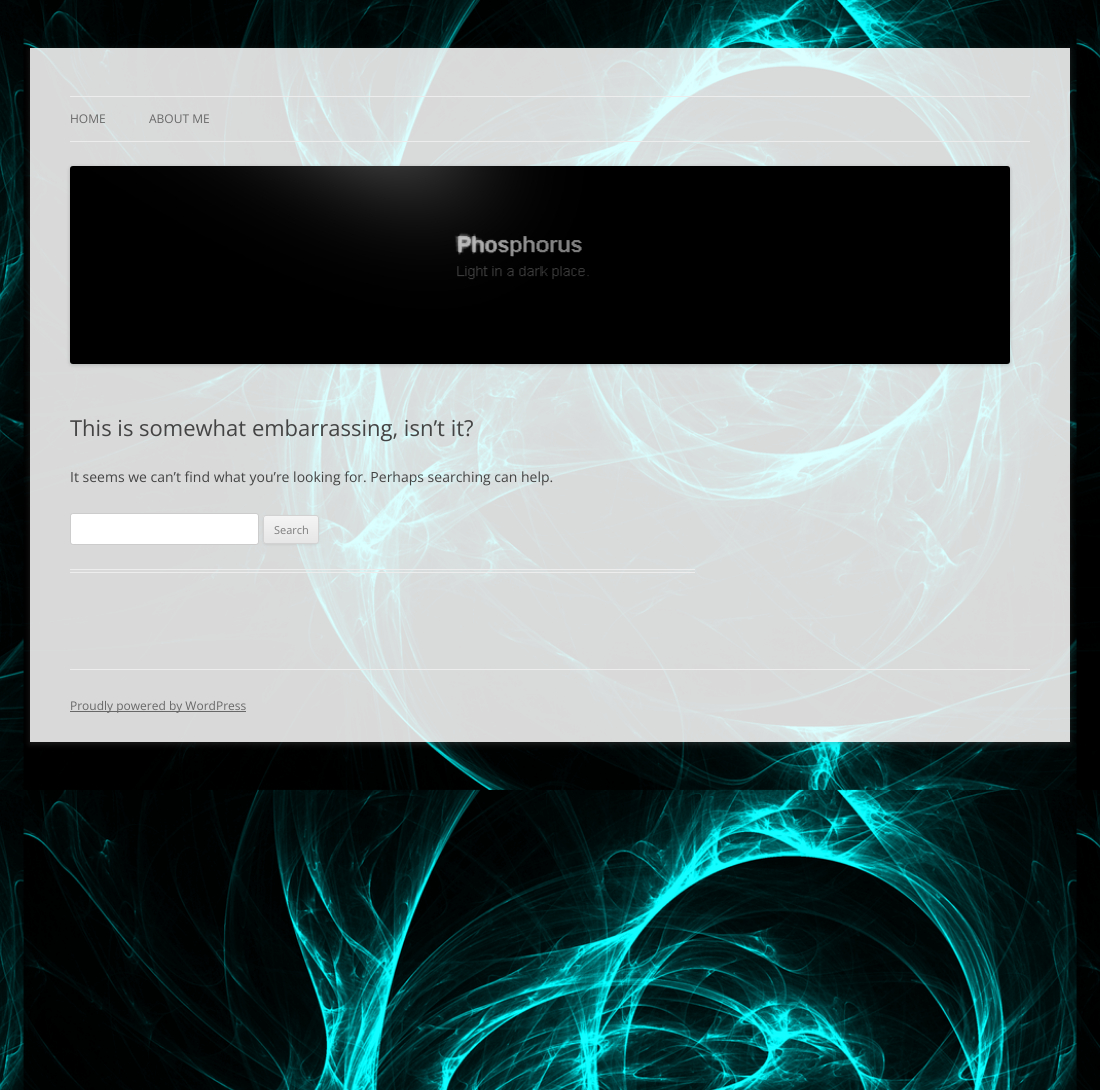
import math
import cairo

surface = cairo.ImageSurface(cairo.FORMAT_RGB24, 1100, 1090)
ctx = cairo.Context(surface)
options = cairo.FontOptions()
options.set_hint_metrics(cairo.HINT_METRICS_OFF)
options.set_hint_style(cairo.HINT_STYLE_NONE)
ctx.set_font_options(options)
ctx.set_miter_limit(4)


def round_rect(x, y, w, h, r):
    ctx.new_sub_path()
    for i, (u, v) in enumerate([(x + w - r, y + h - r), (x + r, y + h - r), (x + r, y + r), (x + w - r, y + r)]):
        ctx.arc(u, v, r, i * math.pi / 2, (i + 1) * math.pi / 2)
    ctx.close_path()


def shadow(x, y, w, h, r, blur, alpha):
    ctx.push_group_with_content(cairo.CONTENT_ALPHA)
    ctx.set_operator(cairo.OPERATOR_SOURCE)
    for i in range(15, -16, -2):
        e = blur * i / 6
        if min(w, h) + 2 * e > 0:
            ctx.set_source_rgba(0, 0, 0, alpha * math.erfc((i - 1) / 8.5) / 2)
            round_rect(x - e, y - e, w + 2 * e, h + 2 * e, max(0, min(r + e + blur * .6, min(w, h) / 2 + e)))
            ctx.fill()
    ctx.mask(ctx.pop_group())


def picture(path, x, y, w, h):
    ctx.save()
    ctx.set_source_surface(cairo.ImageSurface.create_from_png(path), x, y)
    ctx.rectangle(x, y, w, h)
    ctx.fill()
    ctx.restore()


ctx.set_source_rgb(1, 1, 1)
ctx.paint()
picture("img1.png", 0, 0, 1100, 1090)
ctx.save()
ctx.set_fill_rule(cairo.FILL_RULE_EVEN_ODD)
ctx.new_path()
ctx.move_to(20, 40)
ctx.line_to(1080, 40)
ctx.line_to(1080, 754)
ctx.line_to(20, 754)
ctx.close_path()
ctx.move_to(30, 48)
ctx.line_to(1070, 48)
ctx.line_to(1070, 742)
ctx.line_to(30, 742)
ctx.close_path()
ctx.clip()
ctx.set_source_rgb(0.392, 0.392, 0.392)
shadow(30, 50, 1040, 694, 0, 3, 0.3)
ctx.restore()
ctx.set_source_rgba(1, 1, 1, 0.85)
ctx.rectangle(30, 48, 1040, 694)
ctx.fill()
ctx.set_source_rgb(0.929, 0.929, 0.929)
ctx.rectangle(70, 96, 960, 1)
ctx.fill()
ctx.rectangle(70, 141, 960, 1)
ctx.fill()
ctx.select_font_face("Open Sans")
ctx.set_font_size(12)
ctx.set_source_rgb(0.408, 0.408, 0.408)
ctx.move_to(70, 123)
ctx.show_text("HOME")
ctx.move_to(149, 123)
ctx.show_text("ABOUT ME")
ctx.set_source_rgb(0, 0, 0)
shadow(70, 167, 940, 198, 3, 2, 0.2)
picture("img2.png", 70, 166, 940, 198)
ctx.set_source_rgb(0.929, 0.929, 0.929)
ctx.rectangle(70, 569, 625, 1)
ctx.fill()
ctx.rectangle(70, 572, 625, 1)
ctx.fill()
ctx.set_font_size(22)
ctx.set_source_rgb(0.267, 0.267, 0.267)
ctx.move_to(70, 436)
ctx.show_text("This is somewhat embarrassing, isn’t it?")
ctx.set_font_size(14)
ctx.move_to(70, 482)
ctx.show_text("It seems we can’t find what you’re looking for. Perhaps searching can help.")
ctx.set_source_rgb(1, 1, 1)
round_rect(70.5, 513.5, 188, 31, 2.5)
ctx.fill_preserve()
ctx.set_source_rgb(0.8, 0.8, 0.8)
ctx.set_line_width(1)
ctx.stroke()
ctx.set_source_rgb(0.251, 0.251, 0.251)
shadow(263, 516, 56, 29, 3, 1, 0.1)
ctx.save()
round_rect(263, 515, 56, 29, 3)
ctx.clip()
gradient = cairo.LinearGradient(291, 516, 291, 543)
gradient.add_color_stop_rgba(0, 0.957, 0.957, 0.957, 1)
gradient.add_color_stop_rgba(1, 0.902, 0.902, 0.902, 1)
ctx.set_source(gradient)
ctx.rectangle(263, 516, 56, 27)
ctx.fill()
ctx.restore()
round_rect(263.5, 515.5, 55, 28, 2.5)
ctx.set_source_rgb(0.824, 0.824, 0.824)
ctx.stroke()
ctx.set_font_size(11)
ctx.set_source_rgb(0.486, 0.486, 0.486)
ctx.move_to(274, 534)
ctx.show_text("Search")
ctx.set_source_rgb(0.929, 0.929, 0.929)
ctx.rectangle(70, 669, 960, 1)
ctx.fill()
ctx.set_source_rgb(0.408, 0.408, 0.408)
ctx.rectangle(70, 711, 176, 1)
ctx.fill()
ctx.set_font_size(12)
ctx.move_to(70, 710)
ctx.show_text("Proudly powered by WordPress")
surface.write_to_png("page.png")
